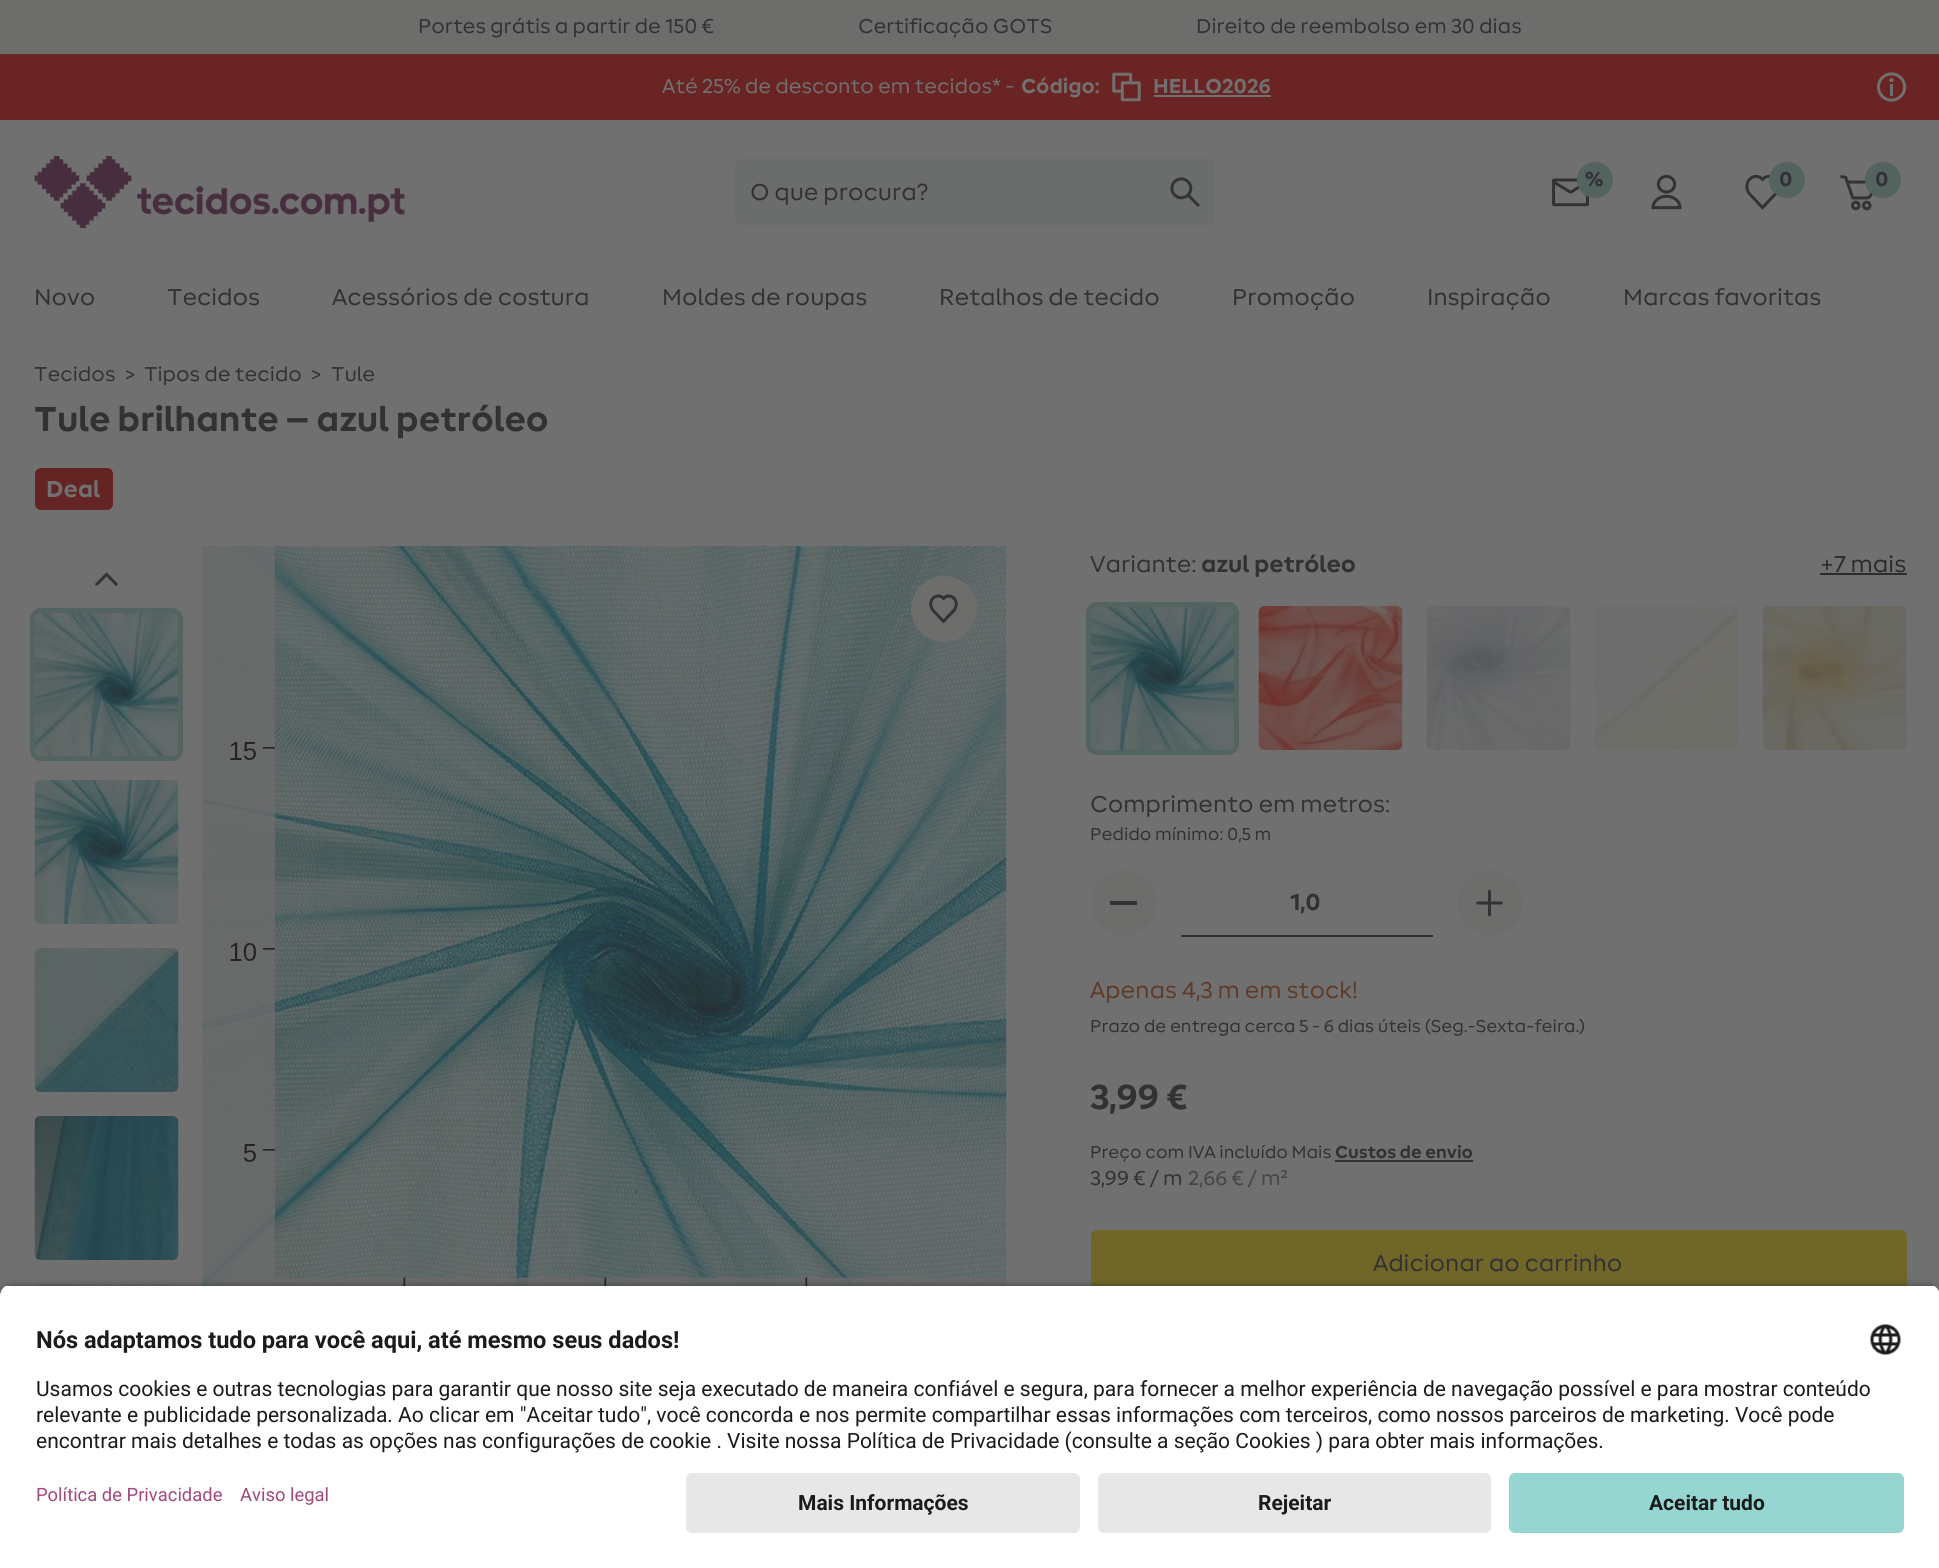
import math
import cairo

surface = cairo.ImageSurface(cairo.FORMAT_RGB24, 1939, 1568)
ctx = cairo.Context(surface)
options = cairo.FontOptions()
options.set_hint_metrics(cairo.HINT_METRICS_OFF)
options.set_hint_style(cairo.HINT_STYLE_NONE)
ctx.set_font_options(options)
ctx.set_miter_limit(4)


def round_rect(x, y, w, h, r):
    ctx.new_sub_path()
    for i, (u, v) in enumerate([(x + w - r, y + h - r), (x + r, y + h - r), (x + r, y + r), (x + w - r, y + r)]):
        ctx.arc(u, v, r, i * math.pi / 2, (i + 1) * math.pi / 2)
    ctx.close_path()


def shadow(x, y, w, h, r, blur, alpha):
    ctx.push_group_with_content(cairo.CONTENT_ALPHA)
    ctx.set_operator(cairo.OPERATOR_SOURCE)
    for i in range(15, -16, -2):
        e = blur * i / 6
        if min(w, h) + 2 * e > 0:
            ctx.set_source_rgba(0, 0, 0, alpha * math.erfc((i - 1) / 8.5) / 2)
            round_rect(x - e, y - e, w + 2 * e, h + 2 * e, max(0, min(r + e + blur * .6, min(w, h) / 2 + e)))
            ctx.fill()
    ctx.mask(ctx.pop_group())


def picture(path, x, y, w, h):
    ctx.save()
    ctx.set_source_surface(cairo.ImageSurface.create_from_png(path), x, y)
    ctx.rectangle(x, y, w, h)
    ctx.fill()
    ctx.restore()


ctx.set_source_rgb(0.439, 0.439, 0.439)
ctx.paint()
ctx.set_source_rgb(0.427, 0.427, 0.424)
ctx.rectangle(0, 0, 1939, 54)
ctx.fill()
ctx.select_font_face("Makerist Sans")
ctx.set_font_size(21)
ctx.set_source_rgb(0.196, 0.196, 0.208)
ctx.move_to(418, 33)
ctx.show_text("Portes grátis a partir de 150 €")
ctx.move_to(858, 33)
ctx.show_text("Certificação GOTS")
ctx.move_to(1196, 33)
ctx.show_text("Direito de reembolso em 30 dias")
ctx.set_source_rgb(0.416, 0.141, 0.141)
ctx.rectangle(0, 54, 1939, 66)
ctx.fill()
ctx.set_source_rgb(0.439, 0.439, 0.439)
ctx.move_to(662, 93)
ctx.show_text("Até 25% de desconto em tecidos* -")
ctx.select_font_face("Makerist Sans", cairo.FONT_SLANT_NORMAL, cairo.FONT_WEIGHT_BOLD)
ctx.move_to(1021, 93)
ctx.show_text("Código:")
picture("img1.png", 1112, 72, 29, 30)
ctx.move_to(1153, 93)
ctx.show_text("HELLO2026")
ctx.rectangle(1154, 95, 117, 2)
ctx.fill()
picture("img2.png", 1877, 72, 30, 30)
picture("img3.png", 34, 156, 371, 72)
picture("img4.png", 1552, 178, 37, 29)
ctx.set_source_rgb(0.325, 0.388, 0.373)
ctx.arc(1595, 180, 18, 0, 2 * math.pi)
ctx.fill()
ctx.set_source_rgb(0.196, 0.196, 0.208)
ctx.move_to(1585, 186)
ctx.show_text("%")
picture("img5.png", 1651, 174, 31, 36)
picture("img6.png", 1745, 174, 32, 36)
ctx.set_source_rgb(0.325, 0.388, 0.373)
ctx.arc(1787, 180, 18, 0, 2 * math.pi)
ctx.fill()
ctx.set_source_rgb(0.196, 0.196, 0.208)
ctx.move_to(1779, 186)
ctx.show_text("0")
picture("img7.png", 1840, 175, 33, 36)
ctx.set_source_rgb(0.325, 0.388, 0.373)
ctx.arc(1883, 180, 18, 0, 2 * math.pi)
ctx.fill()
ctx.set_source_rgb(0.196, 0.196, 0.208)
ctx.move_to(1875, 186)
ctx.show_text("0")
ctx.set_source_rgb(0.42, 0.424, 0.424)
round_rect(735, 159, 480, 66, 6)
ctx.fill()
ctx.select_font_face("Makerist Sans")
ctx.set_font_size(24)
ctx.set_source_rgb(0.196, 0.196, 0.208)
ctx.move_to(750, 200)
ctx.show_text("O que procura?")
picture("img8.png", 1170, 177, 30, 30)
ctx.move_to(34, 305)
ctx.show_text("Novo")
ctx.move_to(167, 305)
ctx.show_text("Tecidos")
ctx.move_to(332, 305)
ctx.show_text("Acessórios de costura")
ctx.move_to(662, 305)
ctx.show_text("Moldes de roupas")
ctx.move_to(939, 305)
ctx.show_text("Retalhos de tecido")
ctx.move_to(1232, 305)
ctx.show_text("Promoção")
ctx.move_to(1427, 305)
ctx.show_text("Inspiração")
ctx.move_to(1623, 305)
ctx.show_text("Marcas favoritas")
ctx.set_font_size(21)
ctx.move_to(34, 381)
ctx.show_text("Tecidos")
ctx.move_to(124, 381)
ctx.show_text(">")
ctx.move_to(144, 381)
ctx.show_text("Tipos de tecido")
ctx.move_to(310, 381)
ctx.show_text(">")
ctx.move_to(331, 381)
ctx.show_text("Tule")
ctx.select_font_face("Makerist Sans", cairo.FONT_SLANT_NORMAL, cairo.FONT_WEIGHT_BOLD)
ctx.set_font_size(36)
ctx.move_to(34, 431)
ctx.show_text("Tule brilhante – azul petróleo")
ctx.set_source_rgb(0.396, 0.141, 0.141)
round_rect(35, 468, 78, 42, 6)
ctx.fill()
ctx.set_font_size(24)
ctx.set_source_rgb(0.439, 0.439, 0.439)
ctx.move_to(46, 497)
ctx.show_text("Deal")
picture("img9.png", 95, 572, 23, 14)
picture("img10.png", 35, 613, 143, 143)
round_rect(32.5, 610.5, 148, 148, 8.5)
ctx.set_source_rgb(0.325, 0.388, 0.373)
ctx.set_line_width(5)
ctx.stroke()
picture("img11.png", 34, 780, 145, 144)
picture("img12.png", 34, 948, 145, 144)
picture("img13.png", 34, 1116, 145, 144)
picture("img14.png", 36, 1284, 141, 2)
picture("img15.png", 202, 546, 805, 740)
picture("img16.png", 203, 546, 803, 740)
ctx.set_source_rgb(0.427, 0.427, 0.424)
ctx.arc(944, 609, 33, 0, 2 * math.pi)
ctx.fill()
picture("img17.png", 929, 594, 29, 30)
ctx.select_font_face("Makerist Sans")
ctx.set_source_rgb(0.196, 0.196, 0.208)
ctx.move_to(1090, 572)
ctx.show_text("Variante:")
ctx.select_font_face("Makerist Sans", cairo.FONT_SLANT_NORMAL, cairo.FONT_WEIGHT_BOLD)
ctx.move_to(1201, 572)
ctx.show_text("azul petróleo")
ctx.select_font_face("Makerist Sans")
ctx.set_source_rgb(0.173, 0.173, 0.173)
ctx.move_to(1820, 572)
ctx.show_text("+7 mais")
ctx.rectangle(1820, 573, 87, 2)
ctx.fill()
picture("img18.png", 1091, 607, 143, 143)
round_rect(1088.5, 604.5, 148, 148, 8.5)
ctx.set_source_rgb(0.325, 0.388, 0.373)
ctx.stroke()
picture("img19.png", 1258, 606, 145, 144)
picture("img20.png", 1426, 606, 145, 144)
picture("img21.png", 1594, 606, 145, 144)
picture("img22.png", 1762, 606, 145, 144)
ctx.set_source_rgb(0.196, 0.196, 0.208)
ctx.move_to(1090, 812)
ctx.show_text("Comprimento em metros:")
ctx.set_font_size(18)
ctx.move_to(1090, 840)
ctx.show_text("Pedido mínimo: 0,5 m")
ctx.set_source_rgb(0.427, 0.427, 0.424)
ctx.new_path()
ctx.arc(1124, 903, 33, 0, 2 * math.pi)
ctx.fill()
ctx.set_source_rgb(0.196, 0.196, 0.208)
ctx.rectangle(1110, 901, 27, 4)
ctx.fill()
ctx.rectangle(1181, 935, 252, 2)
ctx.fill()
ctx.select_font_face("Makerist Sans", cairo.FONT_SLANT_NORMAL, cairo.FONT_WEIGHT_BOLD)
ctx.set_font_size(24)
ctx.move_to(1290, 910)
ctx.show_text("1,0")
ctx.set_source_rgb(0.427, 0.427, 0.424)
ctx.new_path()
ctx.arc(1490, 903, 33, 0, 2 * math.pi)
ctx.fill()
picture("img23.png", 1476, 889, 27, 28)
ctx.select_font_face("Makerist Sans")
ctx.set_source_rgb(0.373, 0.235, 0.157)
ctx.move_to(1090, 998)
ctx.show_text("Apenas 4,3 m em stock!")
ctx.set_font_size(18)
ctx.set_source_rgb(0.196, 0.196, 0.208)
ctx.move_to(1090, 1032)
ctx.show_text("Prazo de entrega cerca 5 - 6 dias úteis (Seg.-Sexta-feira.)")
ctx.select_font_face("Makerist Sans", cairo.FONT_SLANT_NORMAL, cairo.FONT_WEIGHT_BOLD)
ctx.set_font_size(36)
ctx.move_to(1090, 1109)
ctx.show_text("3,99 €")
ctx.select_font_face("Makerist Sans")
ctx.set_font_size(18)
ctx.move_to(1090, 1158)
ctx.show_text("Preço com IVA incluído Mais")
ctx.select_font_face("Makerist Sans", cairo.FONT_SLANT_NORMAL, cairo.FONT_WEIGHT_BOLD)
ctx.move_to(1335, 1158)
ctx.show_text("Custos de envio")
ctx.rectangle(1335, 1160, 138, 2)
ctx.fill()
ctx.select_font_face("Makerist Sans")
ctx.set_font_size(21)
ctx.move_to(1090, 1185)
ctx.show_text("3,99 € / m")
ctx.set_source_rgb(0.271, 0.271, 0.271)
ctx.move_to(1188, 1185)
ctx.show_text("2,66 € / m²")
ctx.set_source_rgb(0.439, 0.4, 0.157)
round_rect(1091, 1230, 816, 66, 6)
ctx.fill()
ctx.set_font_size(24)
ctx.set_source_rgb(0.196, 0.196, 0.208)
ctx.move_to(1373, 1271)
ctx.show_text("Adicionar ao carrinho")
ctx.set_source_rgb(0, 0, 0)
shadow(0, 1289, 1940, 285, 12, 5, 0.8)
ctx.save()
ctx.new_path()
ctx.move_to(12, 1284)
ctx.line_to(1928, 1284)
ctx.curve_to(1934.5, 1284, 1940, 1289.5, 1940, 1296)
ctx.line_to(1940, 1461)
ctx.line_to(0, 1461)
ctx.line_to(0, 1296)
ctx.curve_to(0, 1289.5, 5.5, 1284, 12, 1284)
ctx.close_path()
ctx.clip()
ctx.set_source_rgb(1, 1, 1)
ctx.rectangle(0, 1286, 1939, 175)
ctx.fill()
ctx.restore()
ctx.select_font_face("Roboto", cairo.FONT_SLANT_NORMAL, cairo.FONT_WEIGHT_BOLD)
ctx.set_font_size(23.6)
ctx.set_source_rgb(0.106, 0.106, 0.106)
ctx.move_to(36, 1348)
ctx.show_text("Nós adaptamos tudo para você aqui, até mesmo seus dados!")
picture("img24.png", 1870, 1324, 31, 31)
ctx.select_font_face("Roboto")
ctx.set_font_size(21)
ctx.move_to(36, 1396)
ctx.show_text("Usamos cookies e outras tecnologias para garantir que nosso site seja executado de maneira confiável e segura, para fornecer a melhor experiência de navegação possível e para mostrar conteúdo")
ctx.move_to(36, 1422)
ctx.show_text("relevante e publicidade personalizada. Ao clicar em \"Aceitar tudo\", você concorda e nos permite compartilhar essas informações com terceiros, como nossos parceiros de marketing. Você pode")
ctx.move_to(36, 1448)
ctx.show_text("encontrar mais detalhes e todas as opções nas configurações de cookie . Visite nossa Política de Privacidade (consulte a seção Cookies ) para obter mais informações.")
ctx.set_source_rgb(1, 1, 1)
ctx.rectangle(0, 1461, 1939, 107)
ctx.fill()
ctx.set_font_size(18.4)
ctx.set_source_rgb(0.639, 0.278, 0.49)
ctx.move_to(36, 1501)
ctx.show_text("Política de Privacidade")
ctx.move_to(240, 1501)
ctx.show_text("Aviso legal")
ctx.set_source_rgb(0.906, 0.906, 0.906)
round_rect(686, 1473, 394, 60, 6)
ctx.fill()
ctx.select_font_face("Roboto", cairo.FONT_SLANT_NORMAL, cairo.FONT_WEIGHT_BOLD)
ctx.set_font_size(21)
ctx.set_source_rgb(0.106, 0.106, 0.106)
ctx.move_to(798, 1510)
ctx.show_text("Mais Informações")
ctx.set_source_rgb(0.906, 0.906, 0.906)
round_rect(1098, 1473, 393, 60, 6)
ctx.fill()
ctx.set_source_rgb(0.106, 0.106, 0.106)
ctx.move_to(1258, 1510)
ctx.show_text("Rejeitar")
ctx.set_source_rgb(0.584, 0.839, 0.82)
round_rect(1509, 1473, 395, 60, 6)
ctx.fill()
ctx.set_source_rgb(0.106, 0.106, 0.106)
ctx.move_to(1649, 1510)
ctx.show_text("Aceitar tudo")
surface.write_to_png("page.png")
